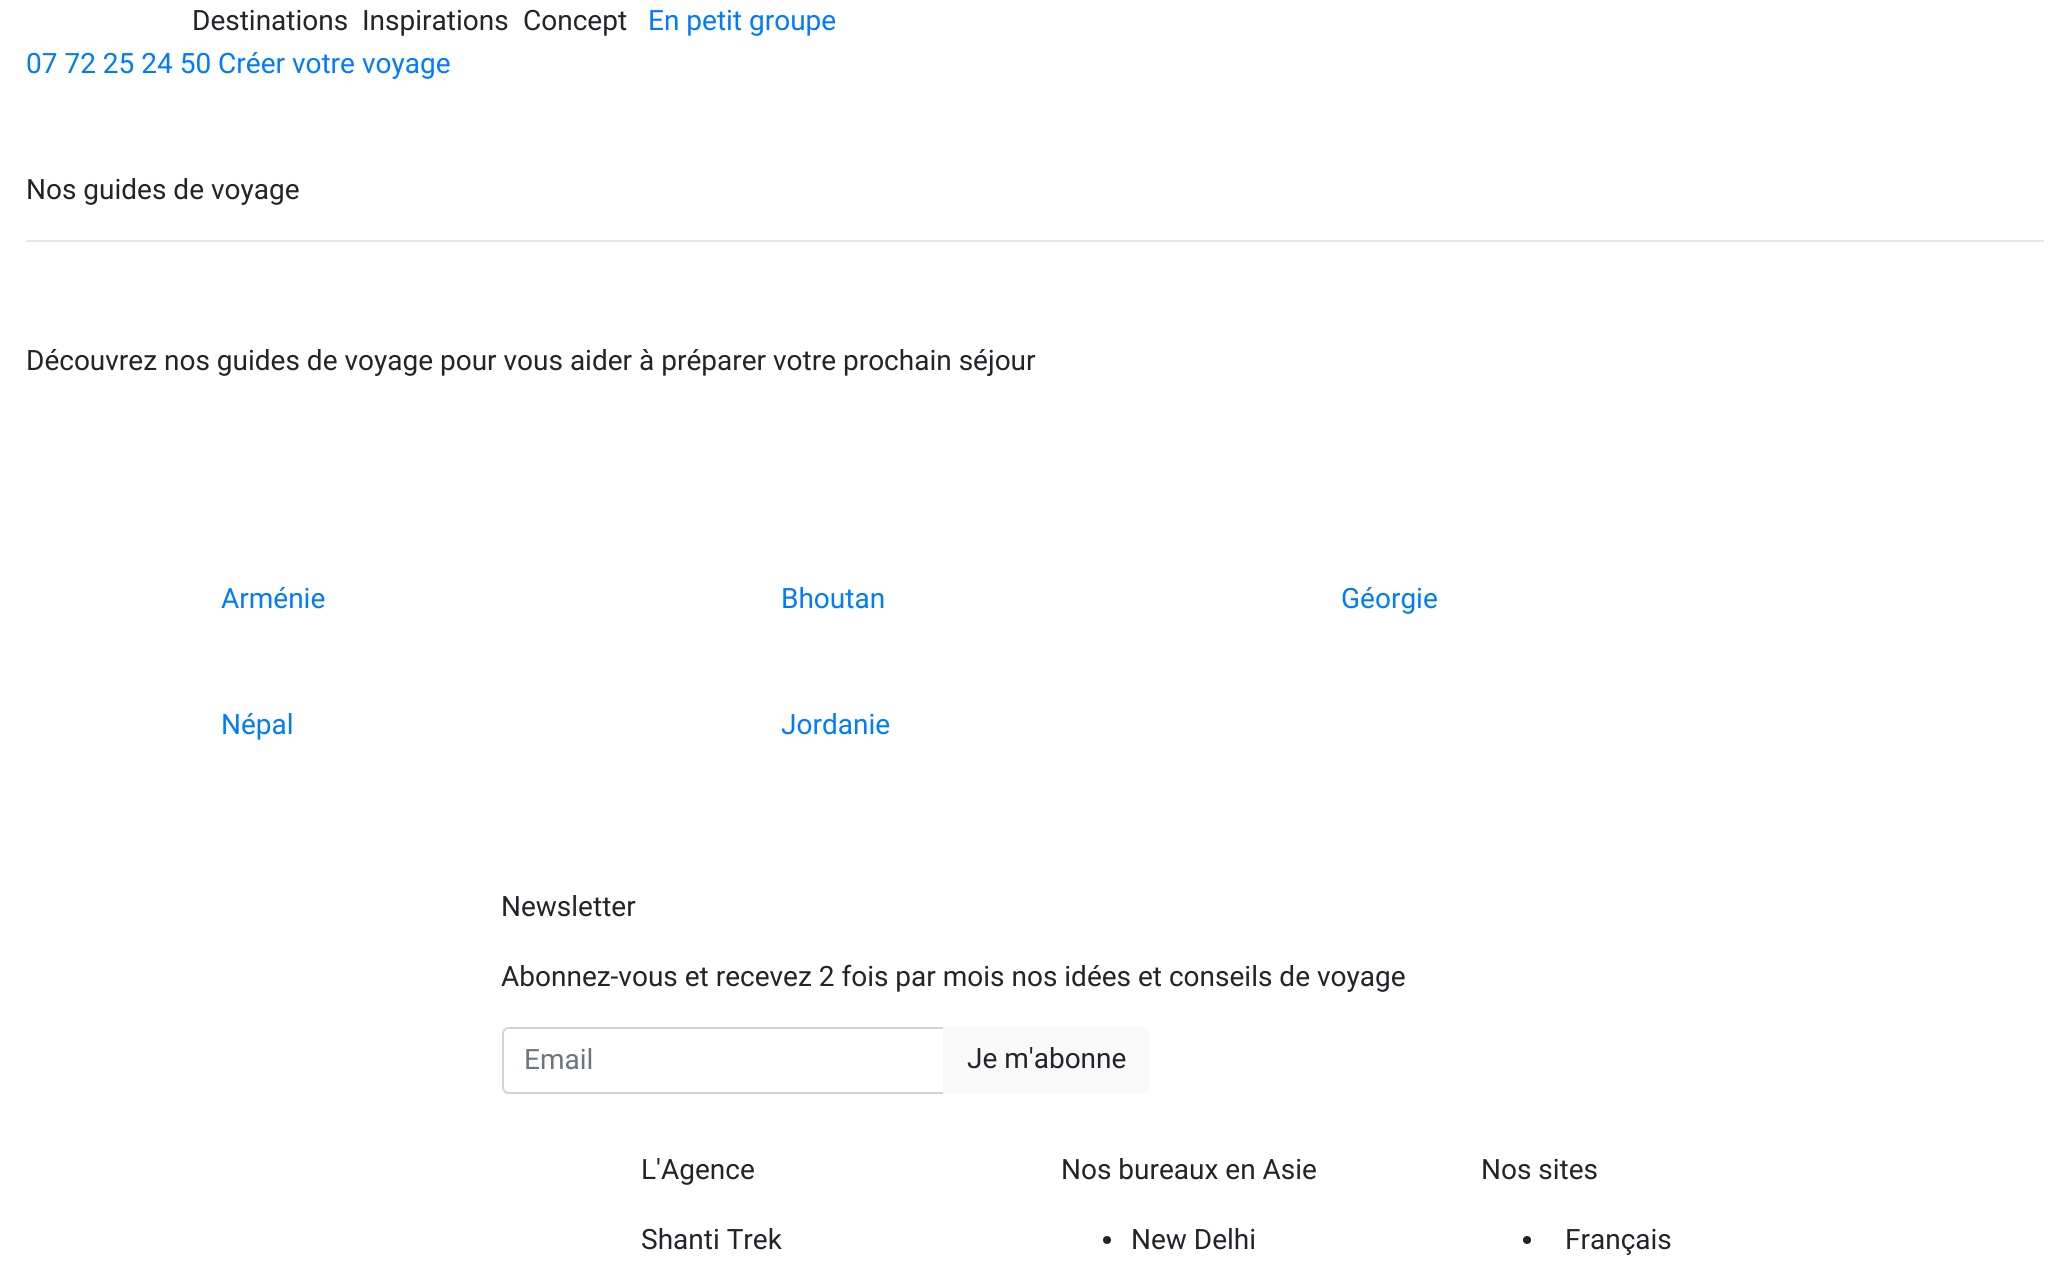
import math
import cairo

surface = cairo.ImageSurface(cairo.FORMAT_RGB24, 2069, 1278)
ctx = cairo.Context(surface)
options = cairo.FontOptions()
options.set_hint_metrics(cairo.HINT_METRICS_OFF)
options.set_hint_style(cairo.HINT_STYLE_NONE)
ctx.set_font_options(options)
ctx.set_miter_limit(4)


ctx.set_source_rgb(1, 1, 1)
ctx.paint()
ctx.select_font_face("Roboto")
ctx.set_font_size(28)
ctx.set_source_rgb(0.129, 0.145, 0.161)
ctx.move_to(192, 30)
ctx.show_text("Destinations")
ctx.move_to(362, 30)
ctx.show_text("Inspirations")
ctx.move_to(523, 30)
ctx.show_text("Concept")
ctx.set_source_rgb(0, 0.482, 1)
ctx.move_to(648, 30)
ctx.show_text("En petit groupe")
ctx.move_to(26, 73)
ctx.show_text("07 72 25 24 50 Créer votre voyage")
ctx.set_source_rgb(0.129, 0.145, 0.161)
ctx.move_to(26, 199)
ctx.show_text("Nos guides de voyage")
ctx.set_source_rgb(0.902, 0.902, 0.902)
ctx.rectangle(26, 240, 2018, 2)
ctx.fill()
ctx.set_source_rgb(0.129, 0.145, 0.161)
ctx.move_to(26, 370)
ctx.show_text("Découvrez nos guides de voyage pour vous aider à préparer votre prochain séjour")
ctx.set_source_rgb(0, 0.482, 1)
ctx.move_to(221, 608)
ctx.show_text("Arménie")
ctx.move_to(781, 608)
ctx.show_text("Bhoutan")
ctx.move_to(1341, 608)
ctx.show_text("Géorgie")
ctx.move_to(221, 734)
ctx.show_text("Népal")
ctx.move_to(781, 734)
ctx.show_text("Jordanie")
ctx.set_source_rgb(0.129, 0.145, 0.161)
ctx.move_to(501, 916)
ctx.show_text("Newsletter")
ctx.move_to(501, 986)
ctx.show_text("Abonnez-vous et recevez 2 fois par mois nos idées et conseils de voyage")
ctx.new_path()
ctx.move_to(509, 1028)
ctx.line_to(944, 1028)
ctx.line_to(944, 1093)
ctx.line_to(509, 1093)
ctx.curve_to(505.5, 1093, 503, 1090.5, 503, 1087)
ctx.line_to(503, 1034)
ctx.curve_to(503, 1030.5, 505.5, 1028, 509, 1028)
ctx.close_path()
ctx.set_source_rgb(0.808, 0.831, 0.855)
ctx.stroke()
ctx.set_source_rgb(0.424, 0.459, 0.49)
ctx.move_to(524, 1069)
ctx.show_text("Email")
ctx.set_source_rgb(0.973, 0.976, 0.98)
ctx.new_path()
ctx.move_to(943, 1027)
ctx.line_to(1143, 1027)
ctx.curve_to(1147, 1027, 1150, 1030, 1150, 1034)
ctx.line_to(1150, 1087)
ctx.curve_to(1150, 1091, 1147, 1094, 1143, 1094)
ctx.line_to(943, 1094)
ctx.close_path()
ctx.fill()
ctx.set_source_rgb(0.129, 0.145, 0.161)
ctx.move_to(967, 1068)
ctx.show_text("Je m'abonne")
ctx.move_to(641, 1179)
ctx.show_text("L'Agence")
ctx.move_to(641, 1249)
ctx.show_text("Shanti Trek")
ctx.move_to(1061, 1179)
ctx.show_text("Nos bureaux en Asie")
ctx.new_path()
ctx.arc(1107, 1240, 4, 0, 2 * math.pi)
ctx.fill()
ctx.move_to(1131, 1249)
ctx.show_text("New Delhi")
ctx.move_to(1481, 1179)
ctx.show_text("Nos sites")
ctx.new_path()
ctx.arc(1527, 1240, 4, 0, 2 * math.pi)
ctx.fill()
ctx.move_to(1565, 1249)
ctx.show_text("Français")
surface.write_to_png("page.png")
